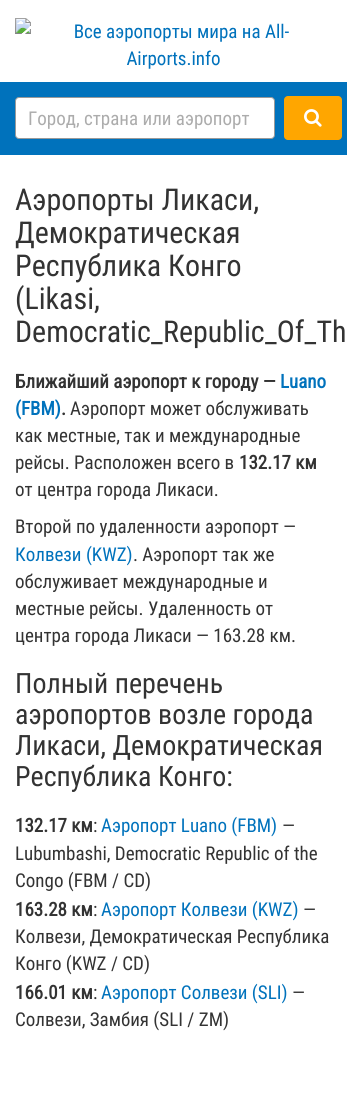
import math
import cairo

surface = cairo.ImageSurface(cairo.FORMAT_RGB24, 347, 1101)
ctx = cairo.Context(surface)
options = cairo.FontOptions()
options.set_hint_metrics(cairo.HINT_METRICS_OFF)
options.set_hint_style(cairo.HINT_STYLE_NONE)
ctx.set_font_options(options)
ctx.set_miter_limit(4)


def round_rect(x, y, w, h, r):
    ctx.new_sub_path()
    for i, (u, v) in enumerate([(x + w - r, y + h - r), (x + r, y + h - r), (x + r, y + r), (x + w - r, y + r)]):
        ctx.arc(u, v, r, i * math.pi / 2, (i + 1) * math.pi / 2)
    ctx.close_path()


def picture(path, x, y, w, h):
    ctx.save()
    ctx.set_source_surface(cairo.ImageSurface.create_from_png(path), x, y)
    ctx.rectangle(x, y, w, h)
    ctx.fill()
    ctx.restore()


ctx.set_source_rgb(1, 1, 1)
ctx.paint()
picture("img1.png", 15, 18, 274, 51)
ctx.set_source_rgb(0, 0.447, 0.737)
ctx.rectangle(0, 82, 347, 73)
ctx.fill()
ctx.set_source_rgb(1, 1, 1)
round_rect(15.5, 97.5, 259, 41, 3.5)
ctx.fill_preserve()
ctx.set_source_rgb(0.6, 0.6, 0.6)
ctx.set_line_width(1)
ctx.stroke()
ctx.select_font_face("Roboto Condensed")
ctx.set_font_size(19)
ctx.set_source_rgb(0.675, 0.675, 0.675)
ctx.move_to(28, 125)
ctx.show_text("Город, страна или аэропорт")
ctx.set_source_rgb(1, 0.651, 0)
round_rect(284, 96, 58, 44, 4)
ctx.fill()
picture("img2.png", 304, 109, 18, 18)
ctx.set_font_size(30)
ctx.set_source_rgb(0.2, 0.2, 0.2)
ctx.move_to(15, 210)
ctx.show_text("Аэропорты Ликаси,")
ctx.move_to(15, 243)
ctx.show_text("Демократическая")
ctx.move_to(15, 276)
ctx.show_text("Республика Конго")
ctx.move_to(15, 309)
ctx.show_text("(Likasi,")
ctx.move_to(15, 342)
ctx.show_text("Democratic_Republic_Of_Th")
ctx.select_font_face("Roboto Condensed", cairo.FONT_SLANT_NORMAL, cairo.FONT_WEIGHT_BOLD)
ctx.set_font_size(19)
ctx.move_to(15, 388)
ctx.show_text("Ближайший аэропорт к городу —")
ctx.set_source_rgb(0, 0.447, 0.737)
ctx.move_to(280, 388)
ctx.show_text("Luano")
ctx.move_to(15, 415)
ctx.show_text("(FBM)")
ctx.set_source_rgb(0.2, 0.2, 0.2)
ctx.move_to(61, 415)
ctx.show_text(".")
ctx.select_font_face("Roboto Condensed")
ctx.move_to(70, 415)
ctx.show_text("Аэропорт может обслуживать")
ctx.move_to(15, 442)
ctx.show_text("как местные, так и международные")
ctx.move_to(15, 469)
ctx.show_text("рейсы. Расположен всего в")
ctx.select_font_face("Roboto Condensed", cairo.FONT_SLANT_NORMAL, cairo.FONT_WEIGHT_BOLD)
ctx.move_to(239, 469)
ctx.show_text("132.17 км")
ctx.select_font_face("Roboto Condensed")
ctx.move_to(15, 496)
ctx.show_text("от центра города Ликаси.")
ctx.move_to(15, 533)
ctx.show_text("Второй по удаленности аэропорт —")
ctx.set_source_rgb(0, 0.447, 0.737)
ctx.move_to(15, 561)
ctx.show_text("Колвези (KWZ)")
ctx.set_source_rgb(0.2, 0.2, 0.2)
ctx.move_to(133, 561)
ctx.show_text(". Аэропорт так же")
ctx.move_to(15, 588)
ctx.show_text("обслуживает международные и")
ctx.move_to(15, 615)
ctx.show_text("местные рейсы. Удаленность от")
ctx.move_to(15, 642)
ctx.show_text("центра города Ликаси — 163.28 км.")
ctx.set_font_size(28)
ctx.move_to(15, 693)
ctx.show_text("Полный перечень")
ctx.move_to(15, 724)
ctx.show_text("аэропортов возле города")
ctx.move_to(15, 755)
ctx.show_text("Ликаси, Демократическая")
ctx.move_to(15, 786)
ctx.show_text("Республика Конго:")
ctx.select_font_face("Roboto Condensed", cairo.FONT_SLANT_NORMAL, cairo.FONT_WEIGHT_BOLD)
ctx.set_font_size(19)
ctx.move_to(15, 832)
ctx.show_text("132.17 км")
ctx.select_font_face("Roboto Condensed")
ctx.move_to(93, 832)
ctx.show_text(":")
ctx.set_source_rgb(0, 0.447, 0.737)
ctx.move_to(101, 832)
ctx.show_text("Аэропорт Luano (FBM)")
ctx.set_source_rgb(0.2, 0.2, 0.2)
ctx.move_to(282, 832)
ctx.show_text("—")
ctx.move_to(15, 860)
ctx.show_text("Lubumbashi, Democratic Republic of the")
ctx.move_to(15, 887)
ctx.show_text("Congo (FBM / CD)")
ctx.select_font_face("Roboto Condensed", cairo.FONT_SLANT_NORMAL, cairo.FONT_WEIGHT_BOLD)
ctx.move_to(15, 916)
ctx.show_text("163.28 км")
ctx.select_font_face("Roboto Condensed")
ctx.move_to(93, 916)
ctx.show_text(":")
ctx.set_source_rgb(0, 0.447, 0.737)
ctx.move_to(101, 916)
ctx.show_text("Аэропорт Колвези (KWZ)")
ctx.set_source_rgb(0.2, 0.2, 0.2)
ctx.move_to(303, 916)
ctx.show_text("—")
ctx.move_to(15, 943)
ctx.show_text("Колвези, Демократическая Республика")
ctx.move_to(15, 970)
ctx.show_text("Конго (KWZ / CD)")
ctx.select_font_face("Roboto Condensed", cairo.FONT_SLANT_NORMAL, cairo.FONT_WEIGHT_BOLD)
ctx.move_to(15, 999)
ctx.show_text("166.01 км")
ctx.select_font_face("Roboto Condensed")
ctx.move_to(93, 999)
ctx.show_text(":")
ctx.set_source_rgb(0, 0.447, 0.737)
ctx.move_to(101, 999)
ctx.show_text("Аэропорт Солвези (SLI)")
ctx.set_source_rgb(0.2, 0.2, 0.2)
ctx.move_to(292, 999)
ctx.show_text("—")
ctx.move_to(15, 1026)
ctx.show_text("Солвези, Замбия (SLI / ZM)")
surface.write_to_png("page.png")
